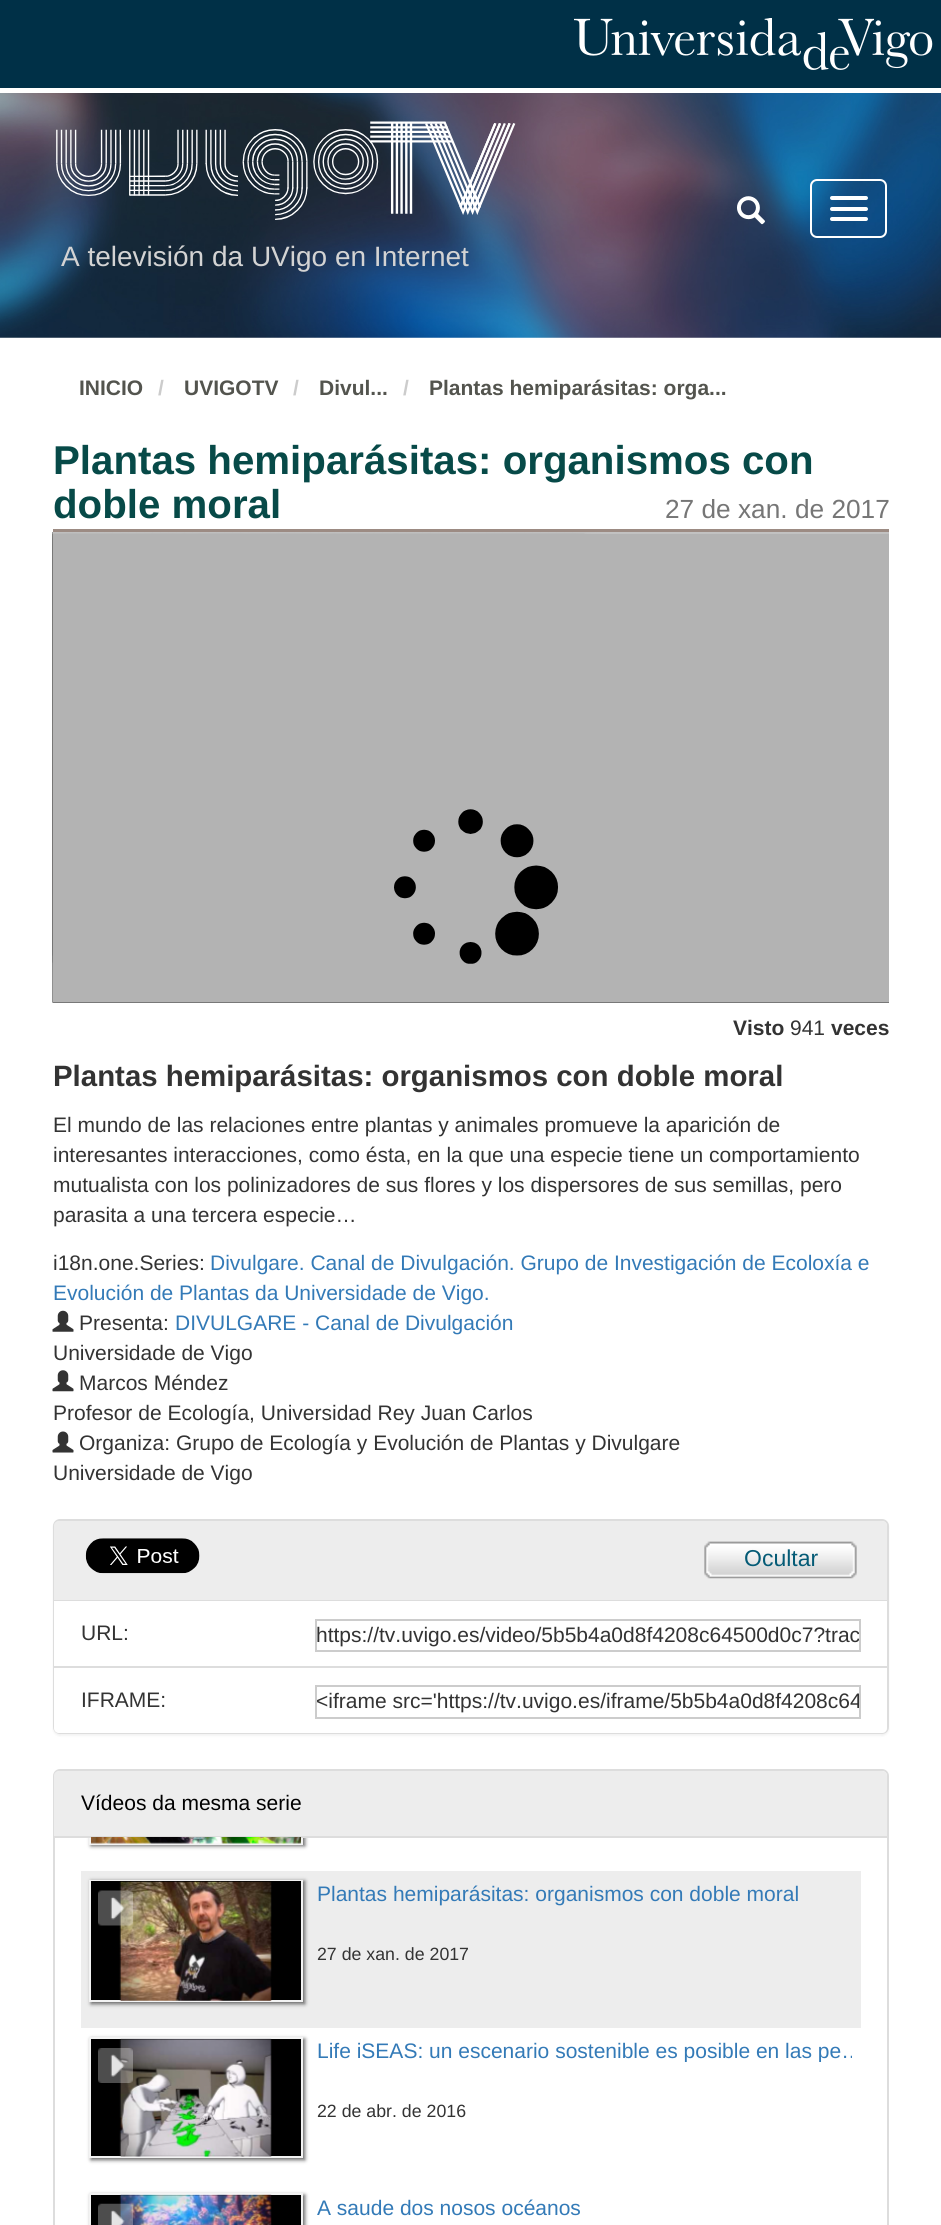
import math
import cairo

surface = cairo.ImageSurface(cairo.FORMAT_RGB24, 941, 2225)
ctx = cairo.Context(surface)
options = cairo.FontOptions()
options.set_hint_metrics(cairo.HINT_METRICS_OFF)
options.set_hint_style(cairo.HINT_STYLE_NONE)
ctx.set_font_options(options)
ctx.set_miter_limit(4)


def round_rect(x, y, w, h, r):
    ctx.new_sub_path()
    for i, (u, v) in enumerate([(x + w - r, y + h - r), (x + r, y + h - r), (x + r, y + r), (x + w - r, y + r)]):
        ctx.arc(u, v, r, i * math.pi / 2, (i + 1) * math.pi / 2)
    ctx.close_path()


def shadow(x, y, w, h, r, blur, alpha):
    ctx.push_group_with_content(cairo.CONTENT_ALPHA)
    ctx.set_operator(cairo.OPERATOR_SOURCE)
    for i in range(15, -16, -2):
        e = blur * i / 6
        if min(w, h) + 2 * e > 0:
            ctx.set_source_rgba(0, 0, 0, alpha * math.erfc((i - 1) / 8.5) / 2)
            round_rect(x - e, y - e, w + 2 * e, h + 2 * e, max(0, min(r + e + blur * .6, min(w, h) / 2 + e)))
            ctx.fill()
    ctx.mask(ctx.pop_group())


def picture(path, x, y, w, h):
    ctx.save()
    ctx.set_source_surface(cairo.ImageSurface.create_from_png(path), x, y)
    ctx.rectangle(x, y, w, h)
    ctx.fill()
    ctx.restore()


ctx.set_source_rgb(1, 1, 1)
ctx.paint()
ctx.set_source_rgb(0, 0.188, 0.278)
ctx.rectangle(0, 0, 941, 88)
ctx.fill()
picture("img1.png", 574, 18, 359, 52)
picture("img2.png", 0, 93, 941, 245)
picture("img3.png", 737, 196, 28, 29)
round_rect(811, 180, 75, 57, 6)
ctx.set_source_rgb(1, 1, 1)
ctx.stroke()
round_rect(830, 196, 38, 4, 2)
ctx.fill()
round_rect(830, 207, 38, 4, 2)
ctx.fill()
round_rect(830, 217, 38, 4, 2)
ctx.fill()
picture("img4.png", 56, 121, 460, 99)
ctx.select_font_face("Liberation Sans")
ctx.set_font_size(28)
ctx.set_source_rgb(0.827, 0.827, 0.827)
ctx.move_to(61, 266)
ctx.show_text("A televisión da UVigo en Internet")
ctx.select_font_face("Liberation Sans", cairo.FONT_SLANT_NORMAL, cairo.FONT_WEIGHT_BOLD)
ctx.set_font_size(21)
ctx.set_source_rgb(0.325, 0.329, 0.306)
ctx.move_to(79, 395)
ctx.show_text("INICIO")
ctx.set_source_rgb(0.8, 0.8, 0.8)
ctx.move_to(158, 395)
ctx.show_text("/")
ctx.set_source_rgb(0.325, 0.329, 0.306)
ctx.move_to(184, 395)
ctx.show_text("UVIGOTV")
ctx.set_source_rgb(0.8, 0.8, 0.8)
ctx.move_to(293, 395)
ctx.show_text("/")
ctx.set_source_rgb(0.325, 0.329, 0.306)
ctx.move_to(319, 395)
ctx.show_text("Divul...")
ctx.set_source_rgb(0.8, 0.8, 0.8)
ctx.move_to(403, 395)
ctx.show_text("/")
ctx.set_source_rgb(0.325, 0.329, 0.306)
ctx.move_to(429, 395)
ctx.show_text("Plantas hemiparásitas: orga...")
ctx.set_source_rgb(0.612, 0.545, 0.514)
ctx.rectangle(53, 529, 836, 3)
ctx.fill()
ctx.set_font_size(40.25)
ctx.set_source_rgb(0.031, 0.29, 0.282)
ctx.move_to(53, 474)
ctx.show_text("Plantas hemiparásitas: organismos con")
ctx.move_to(53, 518)
ctx.show_text("doble moral")
ctx.select_font_face("Liberation Sans")
ctx.set_font_size(26.25)
ctx.set_source_rgb(0.463, 0.463, 0.463)
ctx.move_to(665, 518)
ctx.show_text("27 de xan. de 2017")
picture("img5.png", 52, 532, 837, 471)
ctx.select_font_face("Liberation Sans", cairo.FONT_SLANT_NORMAL, cairo.FONT_WEIGHT_BOLD)
ctx.set_font_size(21)
ctx.set_source_rgb(0.2, 0.2, 0.2)
ctx.move_to(733, 1035)
ctx.show_text("Visto")
ctx.select_font_face("Liberation Sans")
ctx.move_to(790, 1035)
ctx.show_text("941")
ctx.select_font_face("Liberation Sans", cairo.FONT_SLANT_NORMAL, cairo.FONT_WEIGHT_BOLD)
ctx.move_to(831, 1035)
ctx.show_text("veces")
ctx.set_font_size(29.4)
ctx.move_to(53, 1086)
ctx.show_text("Plantas hemiparásitas: organismos con doble moral")
ctx.select_font_face("Liberation Sans")
ctx.set_font_size(21)
ctx.move_to(53, 1132)
ctx.show_text("El mundo de las relaciones entre plantas y animales promueve la aparición de")
ctx.move_to(53, 1162)
ctx.show_text("interesantes interacciones, como ésta, en la que una especie tiene un comportamiento")
ctx.move_to(53, 1192)
ctx.show_text("mutualista con los polinizadores de sus flores y los dispersores de sus semillas, pero")
ctx.move_to(53, 1222)
ctx.show_text("parasita a una tercera especie…")
ctx.move_to(53, 1270)
ctx.show_text("i18n.one.Series:")
ctx.set_source_rgb(0.2, 0.478, 0.718)
ctx.move_to(210, 1270)
ctx.show_text("Divulgare. Canal de Divulgación. Grupo de Investigación de Ecoloxía e")
ctx.move_to(53, 1300)
ctx.show_text("Evolución de Plantas da Universidade de Vigo.")
picture("img6.png", 52, 1310, 22, 22)
ctx.set_source_rgb(0.2, 0.2, 0.2)
ctx.move_to(79, 1330)
ctx.show_text("Presenta:")
ctx.set_source_rgb(0.2, 0.478, 0.718)
ctx.move_to(175, 1330)
ctx.show_text("DIVULGARE - Canal de Divulgación")
ctx.set_source_rgb(0.2, 0.2, 0.2)
ctx.move_to(53, 1360)
ctx.show_text("Universidade de Vigo")
picture("img7.png", 52, 1370, 22, 22)
ctx.move_to(79, 1390)
ctx.show_text("Marcos Méndez")
ctx.move_to(53, 1420)
ctx.show_text("Profesor de Ecología, Universidad Rey Juan Carlos")
picture("img8.png", 52, 1431, 22, 22)
ctx.move_to(79, 1450)
ctx.show_text("Organiza: Grupo de Ecología y Evolución de Plantas y Divulgare")
ctx.move_to(53, 1480)
ctx.show_text("Universidade de Vigo")
ctx.set_source_rgb(0, 0, 0)
shadow(53, 1521, 836, 215, 7, 1, 0.05)
round_rect(54, 1520, 834, 213, 6)
ctx.set_source_rgb(0.867, 0.867, 0.867)
ctx.stroke()
ctx.set_source_rgb(0.929, 0.929, 0.929)
ctx.new_path()
ctx.move_to(59, 1521)
ctx.line_to(882, 1521)
ctx.curve_to(885, 1521, 887, 1523, 887, 1526)
ctx.line_to(887, 1601)
ctx.line_to(54, 1601)
ctx.line_to(54, 1526)
ctx.curve_to(54, 1523, 56, 1521, 59, 1521)
ctx.close_path()
ctx.fill()
ctx.set_source_rgb(0.867, 0.867, 0.867)
ctx.rectangle(54, 1600, 833, 1)
ctx.fill()
picture("img9.png", 85, 1538, 115, 36)
picture("img10.png", 704, 1541, 153, 38)
ctx.set_font_size(23)
ctx.set_source_rgb(0.02, 0.357, 0.463)
ctx.move_to(744, 1566)
ctx.show_text("Ocultar")
ctx.set_source_rgb(1, 1, 1)
ctx.rectangle(54, 1601, 833, 65)
ctx.fill()
ctx.set_font_size(21)
ctx.set_source_rgb(0.2, 0.2, 0.2)
ctx.move_to(81, 1640)
ctx.show_text("URL:")
ctx.rectangle(316, 1620, 544, 31)
ctx.set_source_rgb(0.8, 0.8, 0.8)
ctx.stroke()
ctx.save()
ctx.rectangle(317, 1621, 542, 29)
ctx.clip()
ctx.set_source_rgb(0.2, 0.2, 0.2)
ctx.move_to(316, 1642)
ctx.show_text("https://tv.uvigo.es/video/5b5b4a0d8f4208c64500d0c7?trac")
ctx.restore()
ctx.set_source_rgb(1, 1, 1)
ctx.new_path()
ctx.move_to(54, 1666)
ctx.line_to(887, 1666)
ctx.line_to(887, 1728)
ctx.curve_to(887, 1731, 885, 1733, 882, 1733)
ctx.line_to(59, 1733)
ctx.curve_to(56, 1733, 54, 1731, 54, 1728)
ctx.close_path()
ctx.fill()
ctx.set_source_rgb(0.867, 0.867, 0.867)
ctx.rectangle(54, 1666, 833, 2)
ctx.fill()
ctx.set_source_rgb(0.2, 0.2, 0.2)
ctx.move_to(81, 1707)
ctx.show_text("IFRAME:")
ctx.rectangle(316, 1686, 544, 32)
ctx.set_source_rgb(0.8, 0.8, 0.8)
ctx.stroke()
ctx.save()
ctx.rectangle(317, 1687, 542, 30)
ctx.clip()
ctx.set_source_rgb(0.2, 0.2, 0.2)
ctx.move_to(316, 1708)
ctx.show_text("<iframe src='https://tv.uvigo.es/iframe/5b5b4a0d8f4208c64")
ctx.restore()
round_rect(54, 1770, 834, 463, 6)
ctx.set_source_rgb(0.867, 0.867, 0.867)
ctx.stroke()
ctx.set_source_rgb(0.929, 0.929, 0.929)
ctx.new_path()
ctx.move_to(59, 1771)
ctx.line_to(882, 1771)
ctx.curve_to(885, 1771, 887, 1773, 887, 1776)
ctx.line_to(887, 1838)
ctx.line_to(54, 1838)
ctx.line_to(54, 1776)
ctx.curve_to(54, 1773, 56, 1771, 59, 1771)
ctx.close_path()
ctx.fill()
ctx.set_source_rgb(0.867, 0.867, 0.867)
ctx.rectangle(54, 1836, 833, 2)
ctx.fill()
ctx.set_source_rgb(0, 0, 0)
ctx.move_to(81, 1810)
ctx.show_text("Vídeos da mesma serie")
ctx.save()
ctx.rectangle(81, 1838, 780, 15)
ctx.clip()
ctx.set_source_rgb(0.4, 0.4, 0.4)
shadow(91, 1726, 214, 120, 0, 2, 1)
ctx.restore()
ctx.set_source_rgb(0.953, 0.953, 0.953)
ctx.rectangle(89, 1838, 214, 7)
ctx.fill()
picture("img11.png", 91, 1837, 210, 7)
ctx.set_source_rgb(0.929, 0.929, 0.929)
ctx.rectangle(81, 1871, 780, 157)
ctx.fill()
ctx.set_source_rgb(0.4, 0.4, 0.4)
shadow(91, 1881, 214, 123, 0, 2, 1)
ctx.set_source_rgb(0.953, 0.953, 0.953)
ctx.rectangle(89, 1880, 214, 122)
ctx.fill()
ctx.set_source_rgb(0, 0, 0)
ctx.rectangle(91, 1881, 210, 119)
ctx.fill()
picture("img13.png", 119, 1881, 153, 120)
picture("img12.png", 98, 1890, 35, 36)
ctx.set_source_rgb(0.2, 0.478, 0.718)
ctx.move_to(317, 1901)
ctx.show_text("Plantas hemiparásitas: organismos con doble moral")
ctx.set_font_size(17.75)
ctx.set_source_rgb(0.2, 0.2, 0.2)
ctx.move_to(317, 1960)
ctx.show_text("27 de xan. de 2017")
ctx.set_source_rgb(0.4, 0.4, 0.4)
shadow(91, 2039, 214, 121, 0, 2, 1)
ctx.set_source_rgb(0.953, 0.953, 0.953)
ctx.rectangle(89, 2037, 214, 121)
ctx.fill()
ctx.set_source_rgb(0, 0, 0)
ctx.rectangle(91, 2039, 210, 117)
ctx.fill()
picture("img14.png", 119, 2038, 153, 119)
picture("img15.png", 98, 2048, 35, 35)
ctx.save()
ctx.rectangle(317, 2037, 535, 25)
ctx.clip()
ctx.set_font_size(21)
ctx.set_source_rgb(0.2, 0.478, 0.718)
ctx.move_to(317, 2058)
ctx.show_text("Life iSEAS: un escenario sostenible es posible en las pe…")
ctx.restore()
ctx.set_source_rgb(0.2, 0.2, 0.2)
ctx.move_to(317, 2117)
ctx.show_text("22 de abr. de 2016")
ctx.set_source_rgb(0.4, 0.4, 0.4)
shadow(91, 2195, 214, 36, 0, 2, 1)
ctx.set_source_rgb(0.953, 0.953, 0.953)
ctx.rectangle(89, 2193, 214, 32)
ctx.fill()
ctx.set_source_rgb(0, 0, 0)
ctx.rectangle(91, 2195, 210, 30)
ctx.fill()
picture("img16.png", 119, 2194, 153, 31)
picture("img17.png", 98, 2203, 35, 22)
ctx.set_font_size(21)
ctx.set_source_rgb(0.2, 0.478, 0.718)
ctx.move_to(317, 2215)
ctx.show_text("A saude dos nosos océanos")
surface.write_to_png("page.png")
